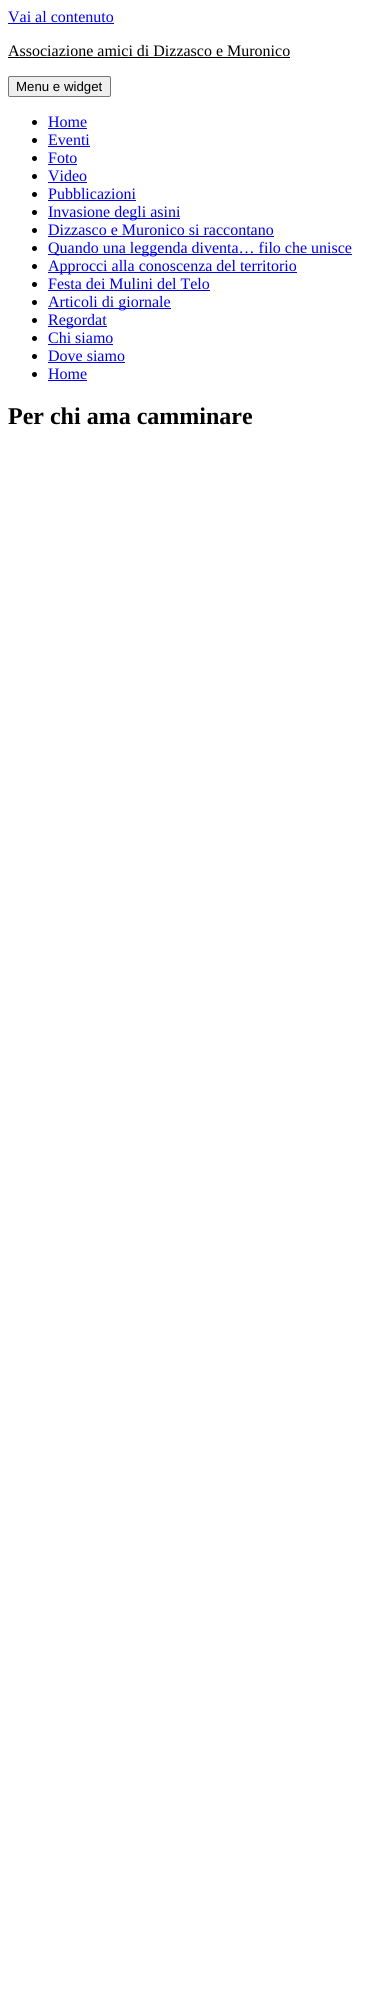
import math
import cairo

surface = cairo.ImageSurface(cairo.FORMAT_RGB24, 370, 2016)
ctx = cairo.Context(surface)
options = cairo.FontOptions()
options.set_hint_metrics(cairo.HINT_METRICS_OFF)
options.set_hint_style(cairo.HINT_STYLE_NONE)
ctx.set_font_options(options)
ctx.set_miter_limit(4)


def round_rect(x, y, w, h, r):
    ctx.new_sub_path()
    for i, (u, v) in enumerate([(x + w - r, y + h - r), (x + r, y + h - r), (x + r, y + r), (x + w - r, y + r)]):
        ctx.arc(u, v, r, i * math.pi / 2, (i + 1) * math.pi / 2)
    ctx.close_path()


ctx.set_source_rgb(1, 1, 1)
ctx.paint()
ctx.select_font_face("Liberation Serif")
ctx.set_font_size(16)
ctx.set_source_rgb(0, 0, 0.933)
ctx.move_to(8, 22)
ctx.show_text("Vai al contenuto")
ctx.rectangle(8, 23, 106, 1)
ctx.fill()
ctx.set_source_rgb(0, 0, 0)
ctx.move_to(8, 56)
ctx.show_text("Associazione amici di Dizzasco e Muronico")
ctx.rectangle(8, 57, 282, 1)
ctx.fill()
ctx.set_source_rgb(0.937, 0.937, 0.937)
round_rect(8.5, 76.5, 102, 20, 1.5)
ctx.fill_preserve()
ctx.set_source_rgb(0.463, 0.463, 0.463)
ctx.set_line_width(1)
ctx.stroke()
ctx.select_font_face("Liberation Sans")
ctx.set_font_size(13.25)
ctx.set_source_rgb(0, 0, 0)
ctx.move_to(16, 91)
ctx.show_text("Menu e widget")
ctx.new_path()
ctx.arc(34.5, 122.5, 2.5, 0, 2 * math.pi)
ctx.fill()
ctx.select_font_face("Liberation Serif")
ctx.set_font_size(16)
ctx.set_source_rgb(0, 0, 0.933)
ctx.move_to(48, 127)
ctx.show_text("Home")
ctx.rectangle(48, 128, 39, 1)
ctx.fill()
ctx.set_source_rgb(0, 0, 0)
ctx.arc(34.5, 140.5, 2.5, 0, 2 * math.pi)
ctx.fill()
ctx.set_source_rgb(0, 0, 0.933)
ctx.move_to(48, 145)
ctx.show_text("Eventi")
ctx.rectangle(48, 146, 42, 1)
ctx.fill()
ctx.set_source_rgb(0, 0, 0)
ctx.arc(34.5, 158.5, 2.5, 0, 2 * math.pi)
ctx.fill()
ctx.set_source_rgb(0, 0, 0.933)
ctx.move_to(48, 163)
ctx.show_text("Foto")
ctx.rectangle(48, 164, 29, 1)
ctx.fill()
ctx.set_source_rgb(0, 0, 0)
ctx.arc(34.5, 176.5, 2.5, 0, 2 * math.pi)
ctx.fill()
ctx.set_source_rgb(0, 0, 0.933)
ctx.move_to(48, 181)
ctx.show_text("Video")
ctx.rectangle(48, 182, 39, 1)
ctx.fill()
ctx.set_source_rgb(0, 0, 0)
ctx.arc(34.5, 194.5, 2.5, 0, 2 * math.pi)
ctx.fill()
ctx.set_source_rgb(0, 0, 0.933)
ctx.move_to(48, 199)
ctx.show_text("Pubblicazioni")
ctx.rectangle(48, 200, 88, 1)
ctx.fill()
ctx.set_source_rgb(0, 0, 0)
ctx.arc(34.5, 212.5, 2.5, 0, 2 * math.pi)
ctx.fill()
ctx.set_source_rgb(0, 0, 0.933)
ctx.rectangle(48, 218, 132, 1)
ctx.fill()
ctx.move_to(48, 217)
ctx.show_text("Invasione degli asini")
ctx.set_source_rgb(0, 0, 0)
ctx.new_path()
ctx.arc(34.5, 230.5, 2.5, 0, 2 * math.pi)
ctx.fill()
ctx.set_source_rgb(0, 0, 0.933)
ctx.move_to(48, 235)
ctx.show_text("Dizzasco e Muronico si raccontano")
ctx.rectangle(48, 236, 226, 1)
ctx.fill()
ctx.set_source_rgb(0, 0, 0)
ctx.arc(34.5, 248.5, 2.5, 0, 2 * math.pi)
ctx.fill()
ctx.set_source_rgb(0, 0, 0.933)
ctx.rectangle(48, 254, 304, 1)
ctx.fill()
ctx.move_to(48, 253)
ctx.show_text("Quando una leggenda diventa… filo che unisce")
ctx.set_source_rgb(0, 0, 0)
ctx.new_path()
ctx.arc(34.5, 266.5, 2.5, 0, 2 * math.pi)
ctx.fill()
ctx.set_source_rgb(0, 0, 0.933)
ctx.rectangle(48, 272, 249, 1)
ctx.fill()
ctx.move_to(48, 271)
ctx.show_text("Approcci alla conoscenza del territorio")
ctx.set_source_rgb(0, 0, 0)
ctx.new_path()
ctx.arc(34.5, 284.5, 2.5, 0, 2 * math.pi)
ctx.fill()
ctx.set_source_rgb(0, 0, 0.933)
ctx.move_to(48, 289)
ctx.show_text("Festa dei Mulini del Telo")
ctx.rectangle(48, 290, 162, 1)
ctx.fill()
ctx.set_source_rgb(0, 0, 0)
ctx.arc(34.5, 302.5, 2.5, 0, 2 * math.pi)
ctx.fill()
ctx.set_source_rgb(0, 0, 0.933)
ctx.rectangle(48, 308, 123, 1)
ctx.fill()
ctx.move_to(48, 307)
ctx.show_text("Articoli di giornale")
ctx.set_source_rgb(0, 0, 0)
ctx.new_path()
ctx.arc(34.5, 320.5, 2.5, 0, 2 * math.pi)
ctx.fill()
ctx.set_source_rgb(0, 0, 0.933)
ctx.rectangle(48, 326, 59, 1)
ctx.fill()
ctx.move_to(48, 325)
ctx.show_text("Regordat")
ctx.set_source_rgb(0, 0, 0)
ctx.new_path()
ctx.arc(34.5, 338.5, 2.5, 0, 2 * math.pi)
ctx.fill()
ctx.set_source_rgb(0, 0, 0.933)
ctx.move_to(48, 343)
ctx.show_text("Chi siamo")
ctx.rectangle(48, 344, 65, 1)
ctx.fill()
ctx.set_source_rgb(0, 0, 0)
ctx.arc(34.5, 356.5, 2.5, 0, 2 * math.pi)
ctx.fill()
ctx.set_source_rgb(0, 0, 0.933)
ctx.move_to(48, 361)
ctx.show_text("Dove siamo")
ctx.rectangle(48, 362, 77, 1)
ctx.fill()
ctx.set_source_rgb(0, 0, 0)
ctx.arc(34.5, 374.5, 2.5, 0, 2 * math.pi)
ctx.fill()
ctx.set_source_rgb(0, 0, 0.933)
ctx.move_to(48, 379)
ctx.show_text("Home")
ctx.rectangle(48, 380, 39, 1)
ctx.fill()
ctx.select_font_face("Liberation Serif", cairo.FONT_SLANT_NORMAL, cairo.FONT_WEIGHT_BOLD)
ctx.set_font_size(24)
ctx.set_source_rgb(0, 0, 0)
ctx.move_to(8, 424)
ctx.show_text("Per chi ama camminare")
surface.write_to_png("page.png")
